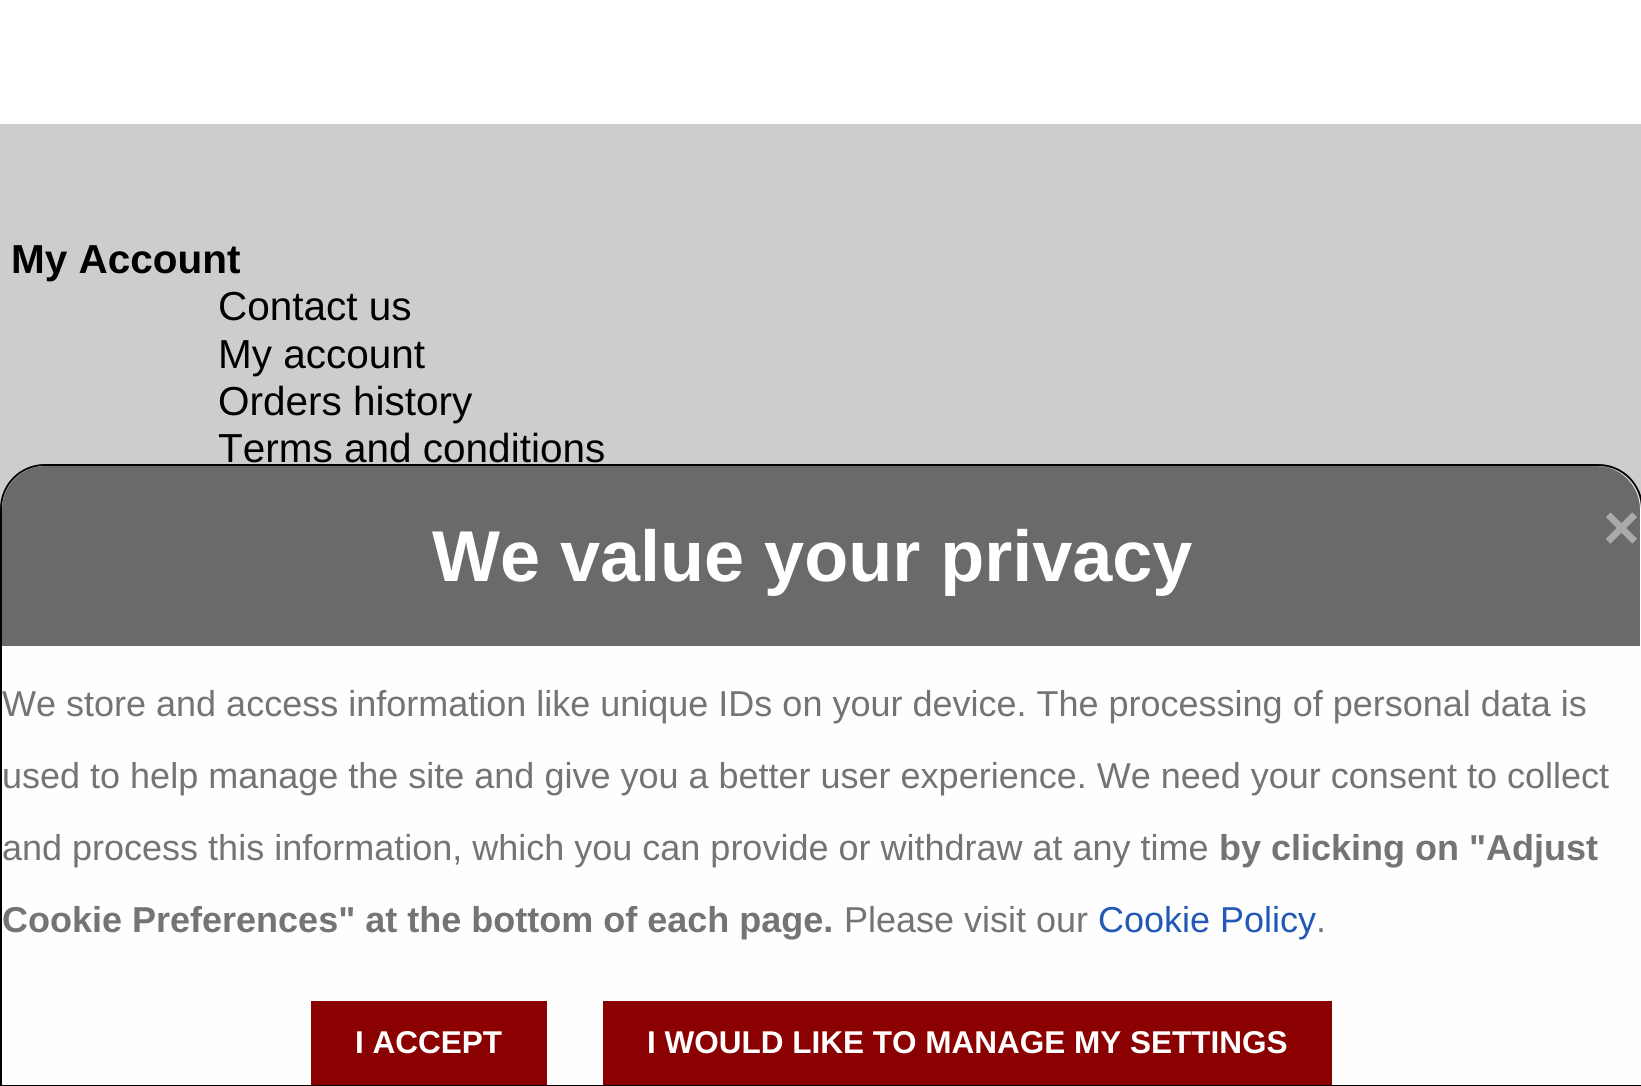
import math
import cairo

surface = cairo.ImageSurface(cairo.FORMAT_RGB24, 1641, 1086)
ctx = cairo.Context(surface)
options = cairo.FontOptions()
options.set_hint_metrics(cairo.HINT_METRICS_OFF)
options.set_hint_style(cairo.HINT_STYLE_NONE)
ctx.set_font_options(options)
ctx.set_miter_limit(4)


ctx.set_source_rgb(1, 1, 1)
ctx.paint()
ctx.set_source_rgb(0.804, 0.804, 0.804)
ctx.rectangle(0, 124, 1641, 385)
ctx.fill()
ctx.select_font_face("Liberation Sans", cairo.FONT_SLANT_NORMAL, cairo.FONT_WEIGHT_BOLD)
ctx.set_font_size(40.5)
ctx.set_source_rgb(0, 0, 0)
ctx.move_to(11, 273)
ctx.show_text("My Account")
ctx.select_font_face("Liberation Sans")
ctx.move_to(218, 320)
ctx.show_text("Contact us")
ctx.move_to(218, 368)
ctx.show_text("My account")
ctx.move_to(218, 415)
ctx.show_text("Orders history")
ctx.move_to(218, 462)
ctx.show_text("Terms and conditions")
ctx.set_source_rgb(0.996, 0.996, 0.996)
ctx.new_path()
ctx.move_to(45, 465)
ctx.line_to(1598, 465)
ctx.curve_to(1622.5, 465, 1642, 484.5, 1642, 509)
ctx.line_to(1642, 1086)
ctx.line_to(1, 1086)
ctx.line_to(1, 509)
ctx.curve_to(1, 484.5, 20.5, 465, 45, 465)
ctx.close_path()
ctx.fill_preserve()
ctx.set_source_rgb(0, 0, 0)
ctx.stroke()
ctx.set_source_rgb(0.416, 0.416, 0.416)
ctx.new_path()
ctx.move_to(45, 466)
ctx.line_to(1597, 466)
ctx.curve_to(1620.5, 466, 1640, 485.5, 1640, 509)
ctx.line_to(1640, 646)
ctx.line_to(2, 646)
ctx.line_to(2, 509)
ctx.curve_to(2, 485.5, 21.5, 466, 45, 466)
ctx.close_path()
ctx.fill()
ctx.select_font_face("Liberation Sans", cairo.FONT_SLANT_NORMAL, cairo.FONT_WEIGHT_BOLD)
ctx.set_font_size(72)
ctx.set_source_rgb(1, 1, 1)
ctx.move_to(432, 581)
ctx.show_text("We value your privacy")
ctx.set_font_size(63)
ctx.set_source_rgb(0.667, 0.667, 0.667)
ctx.move_to(1603, 549)
ctx.show_text("×")
ctx.select_font_face("Liberation Sans")
ctx.set_font_size(36)
ctx.set_source_rgb(0.455, 0.455, 0.455)
ctx.move_to(2, 716)
ctx.show_text("We store and access information like unique IDs on your device. The processing of personal data is")
ctx.move_to(2, 788)
ctx.show_text("used to help manage the site and give you a better user experience. We need your consent to collect")
ctx.move_to(2, 860)
ctx.show_text("and process this information, which you can provide or withdraw at any time")
ctx.select_font_face("Liberation Sans", cairo.FONT_SLANT_NORMAL, cairo.FONT_WEIGHT_BOLD)
ctx.move_to(1219, 860)
ctx.show_text("by clicking on \"Adjust")
ctx.move_to(2, 932)
ctx.show_text("Cookie Preferences\" at the bottom of each page.")
ctx.select_font_face("Liberation Sans")
ctx.move_to(844, 932)
ctx.show_text("Please visit our")
ctx.set_source_rgb(0.133, 0.349, 0.718)
ctx.move_to(1098, 932)
ctx.show_text("Cookie Policy")
ctx.set_source_rgb(0.455, 0.455, 0.455)
ctx.move_to(1316, 932)
ctx.show_text(".")
ctx.set_source_rgb(0.545, 0, 0)
ctx.rectangle(311, 1001, 236, 84)
ctx.fill()
ctx.select_font_face("Liberation Sans", cairo.FONT_SLANT_NORMAL, cairo.FONT_WEIGHT_BOLD)
ctx.set_font_size(31.5)
ctx.set_source_rgb(1, 1, 1)
ctx.move_to(355, 1053)
ctx.show_text("I ACCEPT")
ctx.set_source_rgb(0.545, 0, 0)
ctx.rectangle(603, 1001, 729, 84)
ctx.fill()
ctx.set_source_rgb(1, 1, 1)
ctx.move_to(647, 1053)
ctx.show_text("I WOULD LIKE TO MANAGE MY SETTINGS")
surface.write_to_png("page.png")
